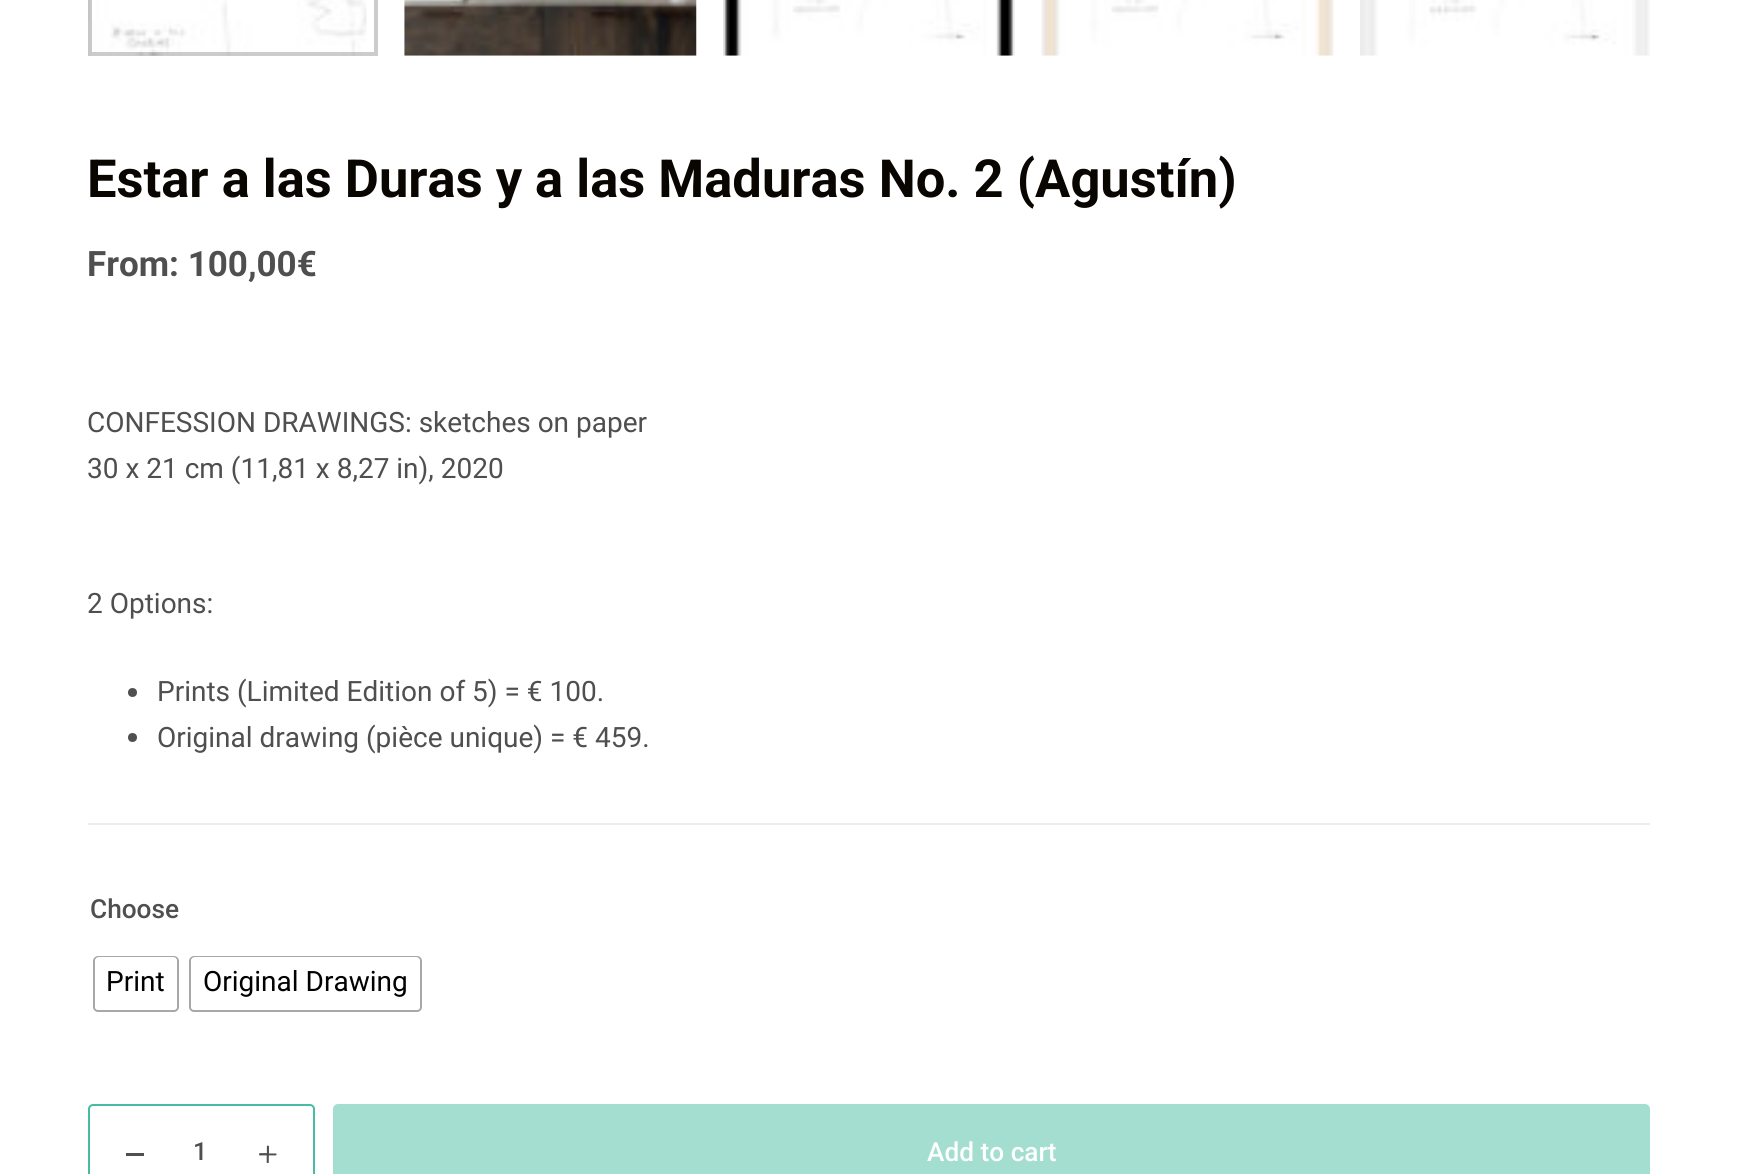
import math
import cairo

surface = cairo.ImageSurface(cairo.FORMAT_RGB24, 1737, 1174)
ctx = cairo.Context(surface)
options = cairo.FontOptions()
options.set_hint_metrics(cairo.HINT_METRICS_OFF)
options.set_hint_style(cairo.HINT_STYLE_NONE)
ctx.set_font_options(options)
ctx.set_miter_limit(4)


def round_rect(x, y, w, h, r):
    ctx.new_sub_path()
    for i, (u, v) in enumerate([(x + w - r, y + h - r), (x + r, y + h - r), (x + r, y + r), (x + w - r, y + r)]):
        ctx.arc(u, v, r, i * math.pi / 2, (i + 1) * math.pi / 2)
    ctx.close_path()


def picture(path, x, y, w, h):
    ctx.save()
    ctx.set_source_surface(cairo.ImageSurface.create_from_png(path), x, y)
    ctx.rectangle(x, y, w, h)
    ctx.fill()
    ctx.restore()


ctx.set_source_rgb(1, 1, 1)
ctx.paint()
picture("img1.png", 88, 0, 279, 56)
ctx.rectangle(90, -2, 286, 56)
ctx.set_source_rgba(0, 0, 0, 0.2)
ctx.set_line_width(4)
ctx.stroke()
picture("img2.png", 404, 0, 293, 56)
picture("img3.png", 723, 0, 292, 56)
picture("img4.png", 1041, 0, 293, 56)
picture("img5.png", 1360, 0, 290, 56)
ctx.select_font_face("Roboto", cairo.FONT_SLANT_NORMAL, cairo.FONT_WEIGHT_BOLD)
ctx.set_font_size(52.5)
ctx.set_source_rgb(0.039, 0.02, 0)
ctx.move_to(87, 197)
ctx.show_text("Estar a las Duras y a las Maduras No. 2 (Agustín)")
ctx.set_font_size(35)
ctx.set_source_rgb(0.31, 0.31, 0.31)
ctx.move_to(87, 276)
ctx.show_text("From: 100,00€")
ctx.select_font_face("Roboto")
ctx.set_font_size(28)
ctx.move_to(87, 432)
ctx.show_text("CONFESSION DRAWINGS: sketches on paper")
ctx.move_to(87, 478)
ctx.show_text("30 x 21 cm (11,81 x 8,27 in), 2020")
ctx.move_to(87, 613)
ctx.show_text("2 Options:")
ctx.new_path()
ctx.arc(132.5, 692.5, 4.5, 0, 2 * math.pi)
ctx.fill()
ctx.move_to(157, 701)
ctx.show_text("Prints (Limited Edition of 5) = € 100.")
ctx.new_path()
ctx.arc(132.5, 737.5, 4.5, 0, 2 * math.pi)
ctx.fill()
ctx.move_to(157, 747)
ctx.show_text("Original drawing (pièce unique) = € 459.")
ctx.set_source_rgb(0.922, 0.922, 0.922)
ctx.rectangle(88, 823, 1562, 2)
ctx.fill()
ctx.select_font_face("Roboto Medium")
ctx.set_font_size(26.25)
ctx.set_source_rgb(0.31, 0.31, 0.31)
ctx.move_to(90, 918)
ctx.show_text("Choose")
round_rect(94, 957, 84, 54, 4)
ctx.set_source_rgb(0.659, 0.659, 0.659)
ctx.set_line_width(2)
ctx.stroke()
ctx.set_source_rgb(1, 1, 1)
round_rect(95, 957, 82, 53, 4)
ctx.fill()
ctx.select_font_face("Roboto")
ctx.set_font_size(28)
ctx.set_source_rgb(0, 0, 0)
ctx.move_to(106, 991)
ctx.show_text("Print")
round_rect(190, 957, 231, 54, 4)
ctx.set_source_rgb(0.659, 0.659, 0.659)
ctx.stroke()
ctx.set_source_rgb(1, 1, 1)
round_rect(191, 957, 229, 53, 4)
ctx.fill()
ctx.set_source_rgb(0, 0, 0)
ctx.move_to(203, 991)
ctx.show_text("Original Drawing")
round_rect(89, 1105, 225, 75, 4)
ctx.set_source_rgb(0.282, 0.737, 0.635)
ctx.stroke()
ctx.set_source_rgb(0.31, 0.31, 0.31)
ctx.rectangle(126, 1153, 18, 3)
ctx.fill()
ctx.select_font_face("Roboto Medium")
ctx.set_font_size(25)
ctx.move_to(193, 1160)
ctx.show_text("1")
picture("img6.png", 259, 1145, 18, 19)
ctx.set_source_rgb(0.643, 0.871, 0.82)
round_rect(333, 1104, 1317, 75, 5)
ctx.fill()
ctx.set_font_size(26.25)
ctx.set_source_rgb(1, 1, 1)
ctx.move_to(927, 1161)
ctx.show_text("Add to cart")
surface.write_to_png("page.png")
